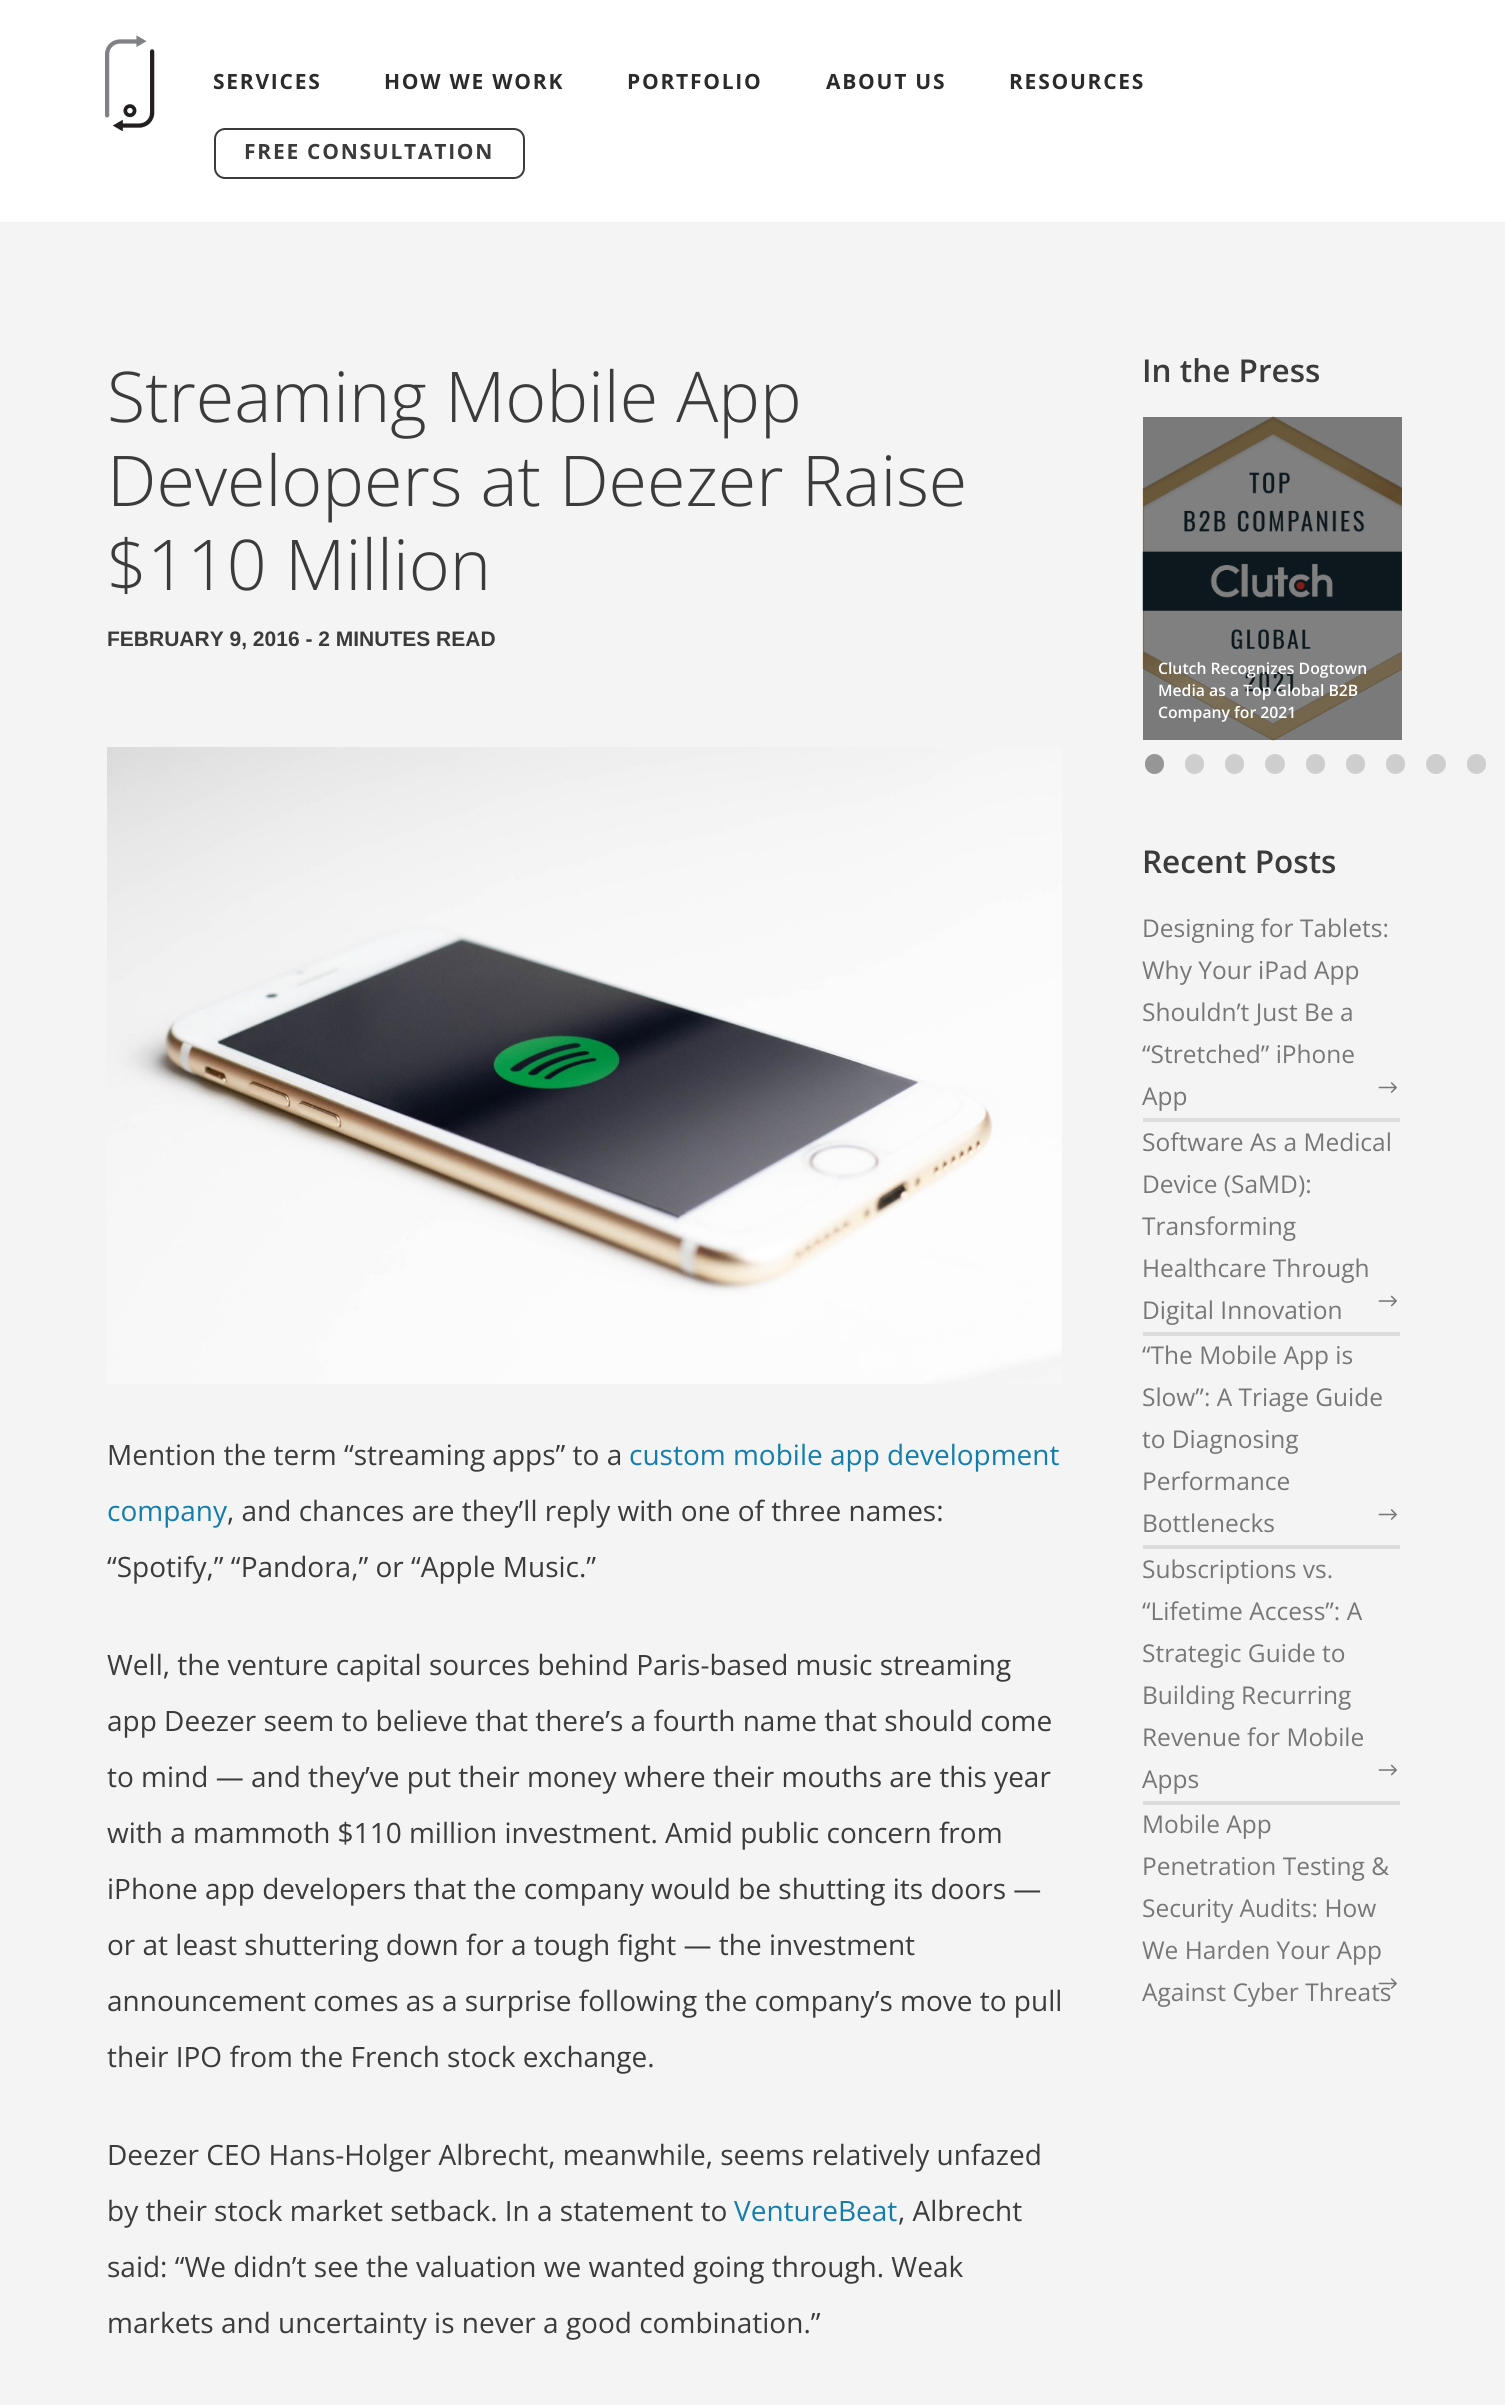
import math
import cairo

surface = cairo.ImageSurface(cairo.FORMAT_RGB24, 1505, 2405)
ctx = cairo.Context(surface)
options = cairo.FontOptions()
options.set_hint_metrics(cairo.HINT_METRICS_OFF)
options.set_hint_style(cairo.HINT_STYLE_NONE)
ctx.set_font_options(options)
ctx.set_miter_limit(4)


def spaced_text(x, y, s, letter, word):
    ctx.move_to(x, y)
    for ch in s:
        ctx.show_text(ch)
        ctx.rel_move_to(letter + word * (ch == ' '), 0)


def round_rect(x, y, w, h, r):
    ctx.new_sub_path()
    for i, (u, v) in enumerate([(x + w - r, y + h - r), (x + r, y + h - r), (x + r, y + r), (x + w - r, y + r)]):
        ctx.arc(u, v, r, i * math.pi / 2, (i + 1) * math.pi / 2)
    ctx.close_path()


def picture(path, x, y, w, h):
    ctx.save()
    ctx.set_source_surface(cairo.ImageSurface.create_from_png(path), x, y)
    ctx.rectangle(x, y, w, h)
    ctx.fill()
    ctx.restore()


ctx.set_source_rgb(1, 1, 1)
ctx.paint()
picture("img1.png", 105, 35, 50, 96)
ctx.select_font_face("Open Sans", cairo.FONT_SLANT_NORMAL, cairo.FONT_WEIGHT_BOLD)
ctx.set_font_size(21)
ctx.set_source_rgb(0.169, 0.169, 0.169)
spaced_text(213, 89, "SERVICES", 1.75, 0)
spaced_text(384, 89, "HOW WE WORK", 1.75, 0)
spaced_text(627, 89, "PORTFOLIO", 1.75, 0)
spaced_text(826, 89, "ABOUT US", 1.75, 0)
spaced_text(1009, 89, "RESOURCES", 1.75, 0)
round_rect(215, 129, 309, 49, 10)
ctx.set_source_rgb(0.231, 0.231, 0.231)
ctx.stroke()
spaced_text(244, 159, "FREE CONSULTATION", 1.75, 0)
ctx.set_source_rgb(0.957, 0.957, 0.957)
ctx.rectangle(0, 222, 1505, 2183)
ctx.fill()
ctx.set_source_rgb(0.478, 0.478, 0.478)
ctx.rectangle(1143, 417, 259, 323)
ctx.fill()
ctx.select_font_face("Open Sans Light")
ctx.set_font_size(70)
ctx.set_source_rgb(0.231, 0.231, 0.231)
ctx.move_to(107, 422)
ctx.show_text("Streaming Mobile App")
ctx.move_to(107, 506)
ctx.show_text("Developers at Deezer Raise")
ctx.move_to(107, 590)
ctx.show_text("$110 Million")
ctx.select_font_face("Liberation Sans", cairo.FONT_SLANT_NORMAL, cairo.FONT_WEIGHT_BOLD)
ctx.set_font_size(21)
ctx.move_to(107, 646)
ctx.show_text("FEBRUARY 9, 2016 - 2 MINUTES READ")
picture("img2.png", 107, 747, 955, 637)
ctx.select_font_face("Open Sans")
ctx.set_font_size(28)
ctx.move_to(107, 1465)
ctx.show_text("Mention the term “streaming apps” to a")
ctx.set_source_rgb(0.082, 0.49, 0.671)
ctx.move_to(629, 1465)
ctx.show_text("custom mobile app development")
ctx.move_to(107, 1521)
ctx.show_text("company")
ctx.set_source_rgb(0.231, 0.231, 0.231)
ctx.move_to(227, 1521)
ctx.show_text(", and chances are they’ll reply with one of three names:")
ctx.move_to(107, 1577)
ctx.show_text("“Spotify,” “Pandora,” or “Apple Music.”")
ctx.move_to(107, 1675)
ctx.show_text("Well, the venture capital sources behind Paris-based music streaming")
ctx.move_to(107, 1731)
ctx.show_text("app Deezer seem to believe that there’s a fourth name that should come")
ctx.move_to(107, 1787)
ctx.show_text("to mind — and they’ve put their money where their mouths are this year")
ctx.move_to(107, 1843)
ctx.show_text("with a mammoth $110 million investment. Amid public concern from")
ctx.move_to(107, 1899)
ctx.show_text("iPhone app developers that the company would be shutting its doors —")
ctx.move_to(107, 1955)
ctx.show_text("or at least shuttering down for a tough fight — the investment")
ctx.move_to(107, 2011)
ctx.show_text("announcement comes as a surprise following the company’s move to pull")
ctx.move_to(107, 2067)
ctx.show_text("their IPO from the French stock exchange.")
ctx.move_to(107, 2165)
ctx.show_text("Deezer CEO Hans-Holger Albrecht, meanwhile, seems relatively unfazed")
ctx.move_to(107, 2221)
ctx.show_text("by their stock market setback. In a statement to")
ctx.set_source_rgb(0.082, 0.49, 0.671)
ctx.move_to(734, 2221)
ctx.show_text("VentureBeat")
ctx.set_source_rgb(0.231, 0.231, 0.231)
ctx.move_to(898, 2221)
ctx.show_text(", Albrecht")
ctx.move_to(107, 2277)
ctx.show_text("said: “We didn’t see the valuation we wanted going through. Weak")
ctx.move_to(107, 2333)
ctx.show_text("markets and uncertainty is never a good combination.”")
ctx.select_font_face("Open Sans SemiBold")
ctx.set_font_size(31.5)
ctx.move_to(1142, 382)
ctx.show_text("In the Press")
picture("img3.png", 1142, 416, 260, 325)
ctx.set_font_size(15.75)
ctx.set_source_rgb(1, 1, 1)
ctx.move_to(1158, 674)
ctx.show_text("Clutch Recognizes Dogtown")
ctx.move_to(1158, 696)
ctx.show_text("Media as a Top Global B2B")
ctx.move_to(1158, 718)
ctx.show_text("Company for 2021")
ctx.set_source_rgb(0.588, 0.588, 0.588)
round_rect(1145, 754, 19, 20, 9.5)
ctx.fill()
ctx.set_source_rgb(0.808, 0.808, 0.808)
round_rect(1185, 754, 19, 20, 9.5)
ctx.fill()
round_rect(1225, 754, 19, 20, 9.5)
ctx.fill()
ctx.arc(1275, 764, 10, 0, 2 * math.pi)
ctx.fill()
round_rect(1306, 754, 19, 20, 9.5)
ctx.fill()
round_rect(1346, 754, 19, 20, 9.5)
ctx.fill()
round_rect(1386, 754, 19, 20, 9.5)
ctx.fill()
ctx.arc(1436, 764, 10, 0, 2 * math.pi)
ctx.fill()
round_rect(1467, 754, 19, 20, 9.5)
ctx.fill()
ctx.set_font_size(31.5)
ctx.set_source_rgb(0.231, 0.231, 0.231)
ctx.move_to(1142, 873)
ctx.show_text("Recent Posts")
ctx.set_source_rgb(0.863, 0.863, 0.863)
ctx.rectangle(1143, 1118, 257, 4)
ctx.fill()
ctx.select_font_face("Open Sans")
ctx.set_font_size(24.5)
ctx.set_source_rgb(0.467, 0.467, 0.467)
ctx.move_to(1142, 937)
ctx.show_text("Designing for Tablets:")
ctx.move_to(1142, 979)
ctx.show_text("Why Your iPad App")
ctx.move_to(1142, 1021)
ctx.show_text("Shouldn’t Just Be a")
ctx.move_to(1142, 1063)
ctx.show_text("“Stretched” iPhone")
ctx.move_to(1142, 1105)
ctx.show_text("App")
picture("img4.png", 1378, 1082, 19, 11)
ctx.set_source_rgb(0.863, 0.863, 0.863)
ctx.rectangle(1143, 1332, 257, 4)
ctx.fill()
ctx.set_source_rgb(0.467, 0.467, 0.467)
ctx.move_to(1142, 1151)
ctx.show_text("Software As a Medical")
ctx.move_to(1142, 1193)
ctx.show_text("Device (SaMD):")
ctx.move_to(1142, 1235)
ctx.show_text("Transforming")
ctx.move_to(1142, 1277)
ctx.show_text("Healthcare Through")
ctx.move_to(1142, 1319)
ctx.show_text("Digital Innovation")
picture("img5.png", 1378, 1295, 19, 12)
ctx.set_source_rgb(0.863, 0.863, 0.863)
ctx.rectangle(1143, 1545, 257, 4)
ctx.fill()
ctx.set_source_rgb(0.467, 0.467, 0.467)
ctx.move_to(1142, 1364)
ctx.show_text("“The Mobile App is")
ctx.move_to(1142, 1406)
ctx.show_text("Slow”: A Triage Guide")
ctx.move_to(1142, 1448)
ctx.show_text("to Diagnosing")
ctx.move_to(1142, 1490)
ctx.show_text("Performance")
ctx.move_to(1142, 1532)
ctx.show_text("Bottlenecks")
picture("img4.png", 1378, 1509, 19, 11)
ctx.set_source_rgb(0.863, 0.863, 0.863)
ctx.rectangle(1143, 1801, 257, 4)
ctx.fill()
ctx.set_source_rgb(0.467, 0.467, 0.467)
ctx.move_to(1142, 1578)
ctx.show_text("Subscriptions vs.")
ctx.move_to(1142, 1620)
ctx.show_text("“Lifetime Access”: A")
ctx.move_to(1142, 1662)
ctx.show_text("Strategic Guide to")
ctx.move_to(1142, 1704)
ctx.show_text("Building Recurring")
ctx.move_to(1142, 1746)
ctx.show_text("Revenue for Mobile")
ctx.move_to(1142, 1788)
ctx.show_text("Apps")
picture("img5.png", 1378, 1764, 19, 12)
ctx.move_to(1142, 1833)
ctx.show_text("Mobile App")
ctx.move_to(1142, 1875)
ctx.show_text("Penetration Testing &")
ctx.move_to(1142, 1917)
ctx.show_text("Security Audits: How")
ctx.move_to(1142, 1959)
ctx.show_text("We Harden Your App")
ctx.move_to(1142, 2001)
ctx.show_text("Against Cyber Threats")
picture("img6.png", 1378, 1978, 19, 11)
surface.write_to_png("page.png")
